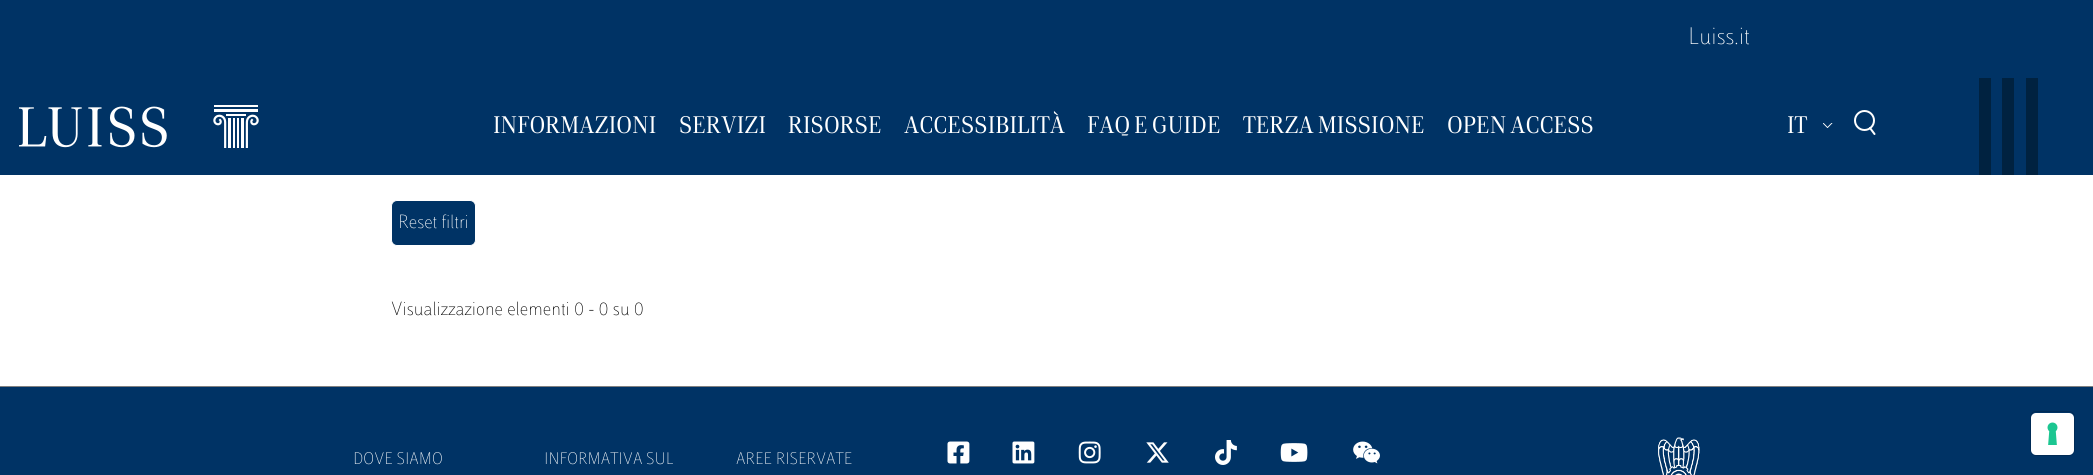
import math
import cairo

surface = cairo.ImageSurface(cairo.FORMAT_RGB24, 2093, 475)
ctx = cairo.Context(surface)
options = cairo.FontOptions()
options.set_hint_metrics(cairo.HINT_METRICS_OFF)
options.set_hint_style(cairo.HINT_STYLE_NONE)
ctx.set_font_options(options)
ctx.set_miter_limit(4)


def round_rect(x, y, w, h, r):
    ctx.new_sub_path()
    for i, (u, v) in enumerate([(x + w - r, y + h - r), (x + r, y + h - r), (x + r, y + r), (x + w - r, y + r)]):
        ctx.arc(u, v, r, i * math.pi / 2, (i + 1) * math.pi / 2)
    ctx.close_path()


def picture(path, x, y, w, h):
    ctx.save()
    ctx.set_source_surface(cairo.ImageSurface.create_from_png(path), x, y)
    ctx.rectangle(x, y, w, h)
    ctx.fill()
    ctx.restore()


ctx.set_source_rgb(1, 1, 1)
ctx.paint()
ctx.set_source_rgb(0, 0.2, 0.396)
ctx.rectangle(0, 0, 2093, 175)
ctx.fill()
ctx.select_font_face("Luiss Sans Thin")
ctx.set_font_size(25)
ctx.set_source_rgb(1, 1, 1)
ctx.move_to(1688, 44)
ctx.show_text("Luiss.it")
picture("img1.png", 19, 105, 240, 43)
ctx.select_font_face("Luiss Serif")
ctx.move_to(493, 133)
ctx.show_text("INFORMAZIONI")
ctx.move_to(679, 133)
ctx.show_text("SERVIZI")
ctx.move_to(788, 133)
ctx.show_text("RISORSE")
ctx.move_to(904, 133)
ctx.show_text("ACCESSIBILITÀ")
ctx.move_to(1087, 133)
ctx.show_text("FAQ E GUIDE")
ctx.move_to(1243, 133)
ctx.show_text("TERZA MISSIONE")
ctx.move_to(1447, 133)
ctx.show_text("OPEN ACCESS")
ctx.move_to(1787, 133)
ctx.show_text("IT")
picture("img2.png", 1823, 123, 10, 5)
ctx.arc(1864.5, 120.5, 9.5, 0, 2 * math.pi)
ctx.stroke()
ctx.new_path()
ctx.move_to(1874.5, 134)
ctx.line_to(1870, 128)
ctx.set_line_cap(cairo.LINE_CAP_ROUND)
ctx.set_line_join(cairo.LINE_JOIN_ROUND)
ctx.stroke()
ctx.set_source_rgb(0, 0.133, 0.251)
ctx.rectangle(1979, 78, 12, 97)
ctx.fill()
ctx.rectangle(2002, 78, 12, 97)
ctx.fill()
ctx.rectangle(2026, 78, 12, 97)
ctx.fill()
ctx.set_source_rgb(0, 0.2, 0.396)
round_rect(391.5, 200.5, 84, 45, 5.5)
ctx.fill_preserve()
ctx.set_source_rgb(1, 1, 1)
ctx.set_line_width(1)
ctx.set_line_cap(cairo.LINE_CAP_BUTT)
ctx.set_line_join(cairo.LINE_JOIN_MITER)
ctx.stroke()
ctx.select_font_face("Luiss Sans Thin")
ctx.set_font_size(20)
ctx.move_to(398, 228)
ctx.show_text("Reset filtri")
ctx.set_source_rgb(0.004, 0.004, 0.004)
ctx.move_to(391, 315)
ctx.show_text("Visualizzazione elementi 0 - 0 su 0")
ctx.set_source_rgb(0, 0.2, 0.396)
ctx.rectangle(0, 387, 2093, 88)
ctx.fill()
ctx.set_source_rgb(0.502, 0.502, 0.502)
ctx.rectangle(0, 386, 2093, 1)
ctx.fill()
ctx.set_font_size(17.5)
ctx.set_source_rgb(1, 1, 1)
ctx.move_to(353, 464)
ctx.show_text("DOVE SIAMO")
ctx.move_to(544, 464)
ctx.show_text("INFORMATIVA SUL")
ctx.move_to(736, 464)
ctx.show_text("AREE RISERVATE")
picture("img3.png", 947, 441, 23, 23)
picture("img4.png", 1012, 441, 23, 23)
picture("img5.png", 1078, 441, 23, 23)
picture("img6.png", 1146, 442, 23, 21)
picture("img7.png", 1215, 440, 22, 25)
picture("img8.png", 1280, 443, 28, 19)
picture("img9.png", 1353, 441, 27, 23)
picture("img10.png", 1658, 437, 42, 38)
round_rect(2030.5, 411.5, 44, 44, 5.5)
ctx.set_source_rgb(0, 0.169, 0.337)
ctx.stroke()
ctx.set_source_rgb(1, 1, 1)
round_rect(2031, 413, 43, 42, 5)
ctx.fill()
picture("img11.png", 2047, 422, 11, 23)
surface.write_to_png("page.png")
